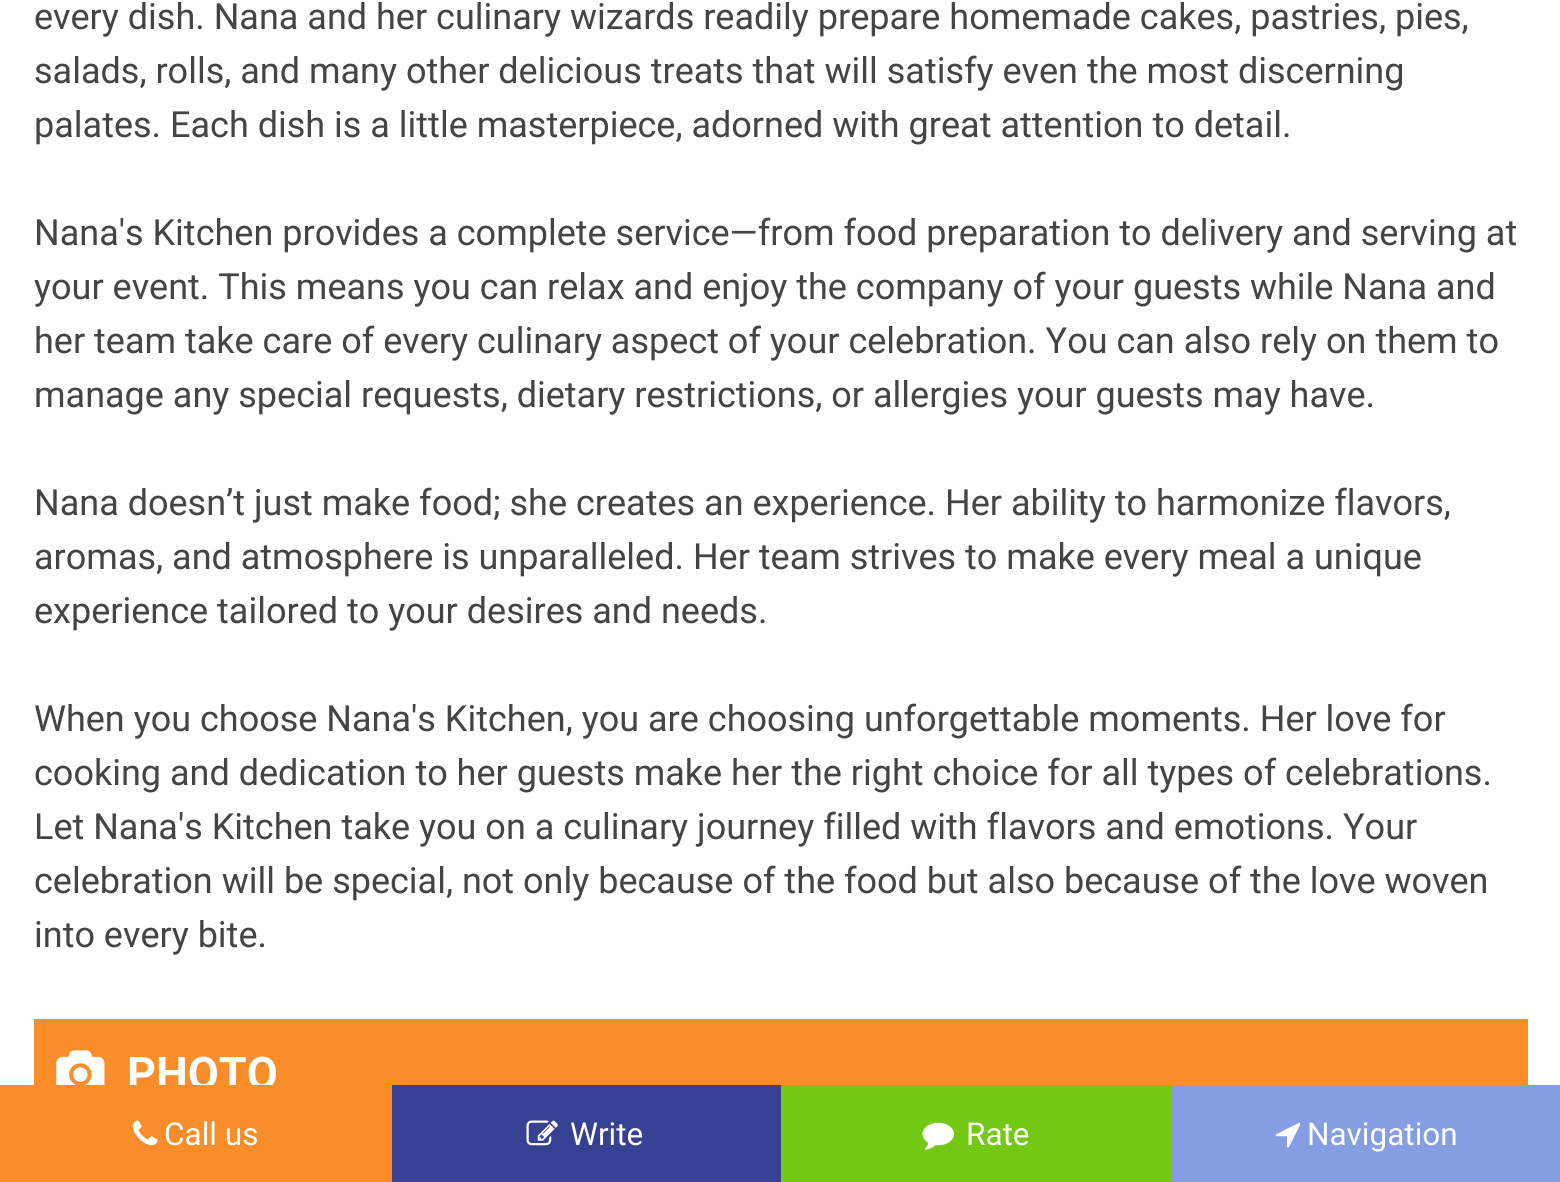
import math
import cairo

surface = cairo.ImageSurface(cairo.FORMAT_RGB24, 1560, 1182)
ctx = cairo.Context(surface)
options = cairo.FontOptions()
options.set_hint_metrics(cairo.HINT_METRICS_OFF)
options.set_hint_style(cairo.HINT_STYLE_NONE)
ctx.set_font_options(options)
ctx.set_miter_limit(4)


def picture(path, x, y, w, h):
    ctx.save()
    ctx.set_source_surface(cairo.ImageSurface.create_from_png(path), x, y)
    ctx.rectangle(x, y, w, h)
    ctx.fill()
    ctx.restore()


ctx.set_source_rgb(1, 1, 1)
ctx.paint()
ctx.select_font_face("Roboto")
ctx.set_font_size(36)
ctx.set_source_rgb(0.267, 0.267, 0.267)
ctx.move_to(34, 29)
ctx.show_text("every dish. Nana and her culinary wizards readily prepare homemade cakes, pastries, pies,")
ctx.move_to(34, 83)
ctx.show_text("salads, rolls, and many other delicious treats that will satisfy even the most discerning")
ctx.move_to(34, 137)
ctx.show_text("palates. Each dish is a little masterpiece, adorned with great attention to detail.")
ctx.move_to(34, 245)
ctx.show_text("Nana's Kitchen provides a complete service—from food preparation to delivery and serving at")
ctx.move_to(34, 299)
ctx.show_text("your event. This means you can relax and enjoy the company of your guests while Nana and")
ctx.move_to(34, 353)
ctx.show_text("her team take care of every culinary aspect of your celebration. You can also rely on them to")
ctx.move_to(34, 407)
ctx.show_text("manage any special requests, dietary restrictions, or allergies your guests may have.")
ctx.move_to(34, 515)
ctx.show_text("Nana doesn’t just make food; she creates an experience. Her ability to harmonize flavors,")
ctx.move_to(34, 569)
ctx.show_text("aromas, and atmosphere is unparalleled. Her team strives to make every meal a unique")
ctx.move_to(34, 623)
ctx.show_text("experience tailored to your desires and needs.")
ctx.move_to(34, 731)
ctx.show_text("When you choose Nana's Kitchen, you are choosing unforgettable moments. Her love for")
ctx.move_to(34, 785)
ctx.show_text("cooking and dedication to her guests make her the right choice for all types of celebrations.")
ctx.move_to(34, 839)
ctx.show_text("Let Nana's Kitchen take you on a culinary journey filled with flavors and emotions. Your")
ctx.move_to(34, 893)
ctx.show_text("celebration will be special, not only because of the food but also because of the love woven")
ctx.move_to(34, 947)
ctx.show_text("into every bite.")
ctx.set_source_rgb(0.976, 0.553, 0.161)
ctx.rectangle(34, 1019, 1494, 66)
ctx.fill()
picture("img1.png", 56, 1050, 49, 35)
ctx.select_font_face("Roboto", cairo.FONT_SLANT_NORMAL, cairo.FONT_WEIGHT_BOLD)
ctx.set_font_size(45)
ctx.set_source_rgb(1, 1, 1)
ctx.move_to(127, 1089)
ctx.show_text("PHOTO")
ctx.set_source_rgb(0.976, 0.553, 0.161)
ctx.rectangle(0, 1085, 392, 97)
ctx.fill()
picture("img2.png", 132, 1120, 26, 26)
ctx.select_font_face("Roboto")
ctx.set_font_size(31.5)
ctx.set_source_rgb(1, 1, 1)
ctx.move_to(164, 1145)
ctx.show_text("Call us")
ctx.set_source_rgb(0.216, 0.255, 0.576)
ctx.rectangle(392, 1085, 389, 97)
ctx.fill()
picture("img3.png", 526, 1120, 32, 26)
ctx.set_source_rgb(1, 1, 1)
ctx.move_to(570, 1145)
ctx.show_text("Write")
ctx.set_source_rgb(0.447, 0.784, 0.078)
ctx.rectangle(781, 1085, 391, 97)
ctx.fill()
picture("img4.png", 922, 1122, 32, 28)
ctx.set_source_rgb(1, 1, 1)
ctx.move_to(966, 1145)
ctx.show_text("Rate")
ctx.set_source_rgb(0.522, 0.62, 0.89)
ctx.rectangle(1172, 1085, 388, 97)
ctx.fill()
picture("img5.png", 1275, 1122, 26, 26)
ctx.set_source_rgb(1, 1, 1)
ctx.move_to(1307, 1145)
ctx.show_text("Navigation")
surface.write_to_png("page.png")
